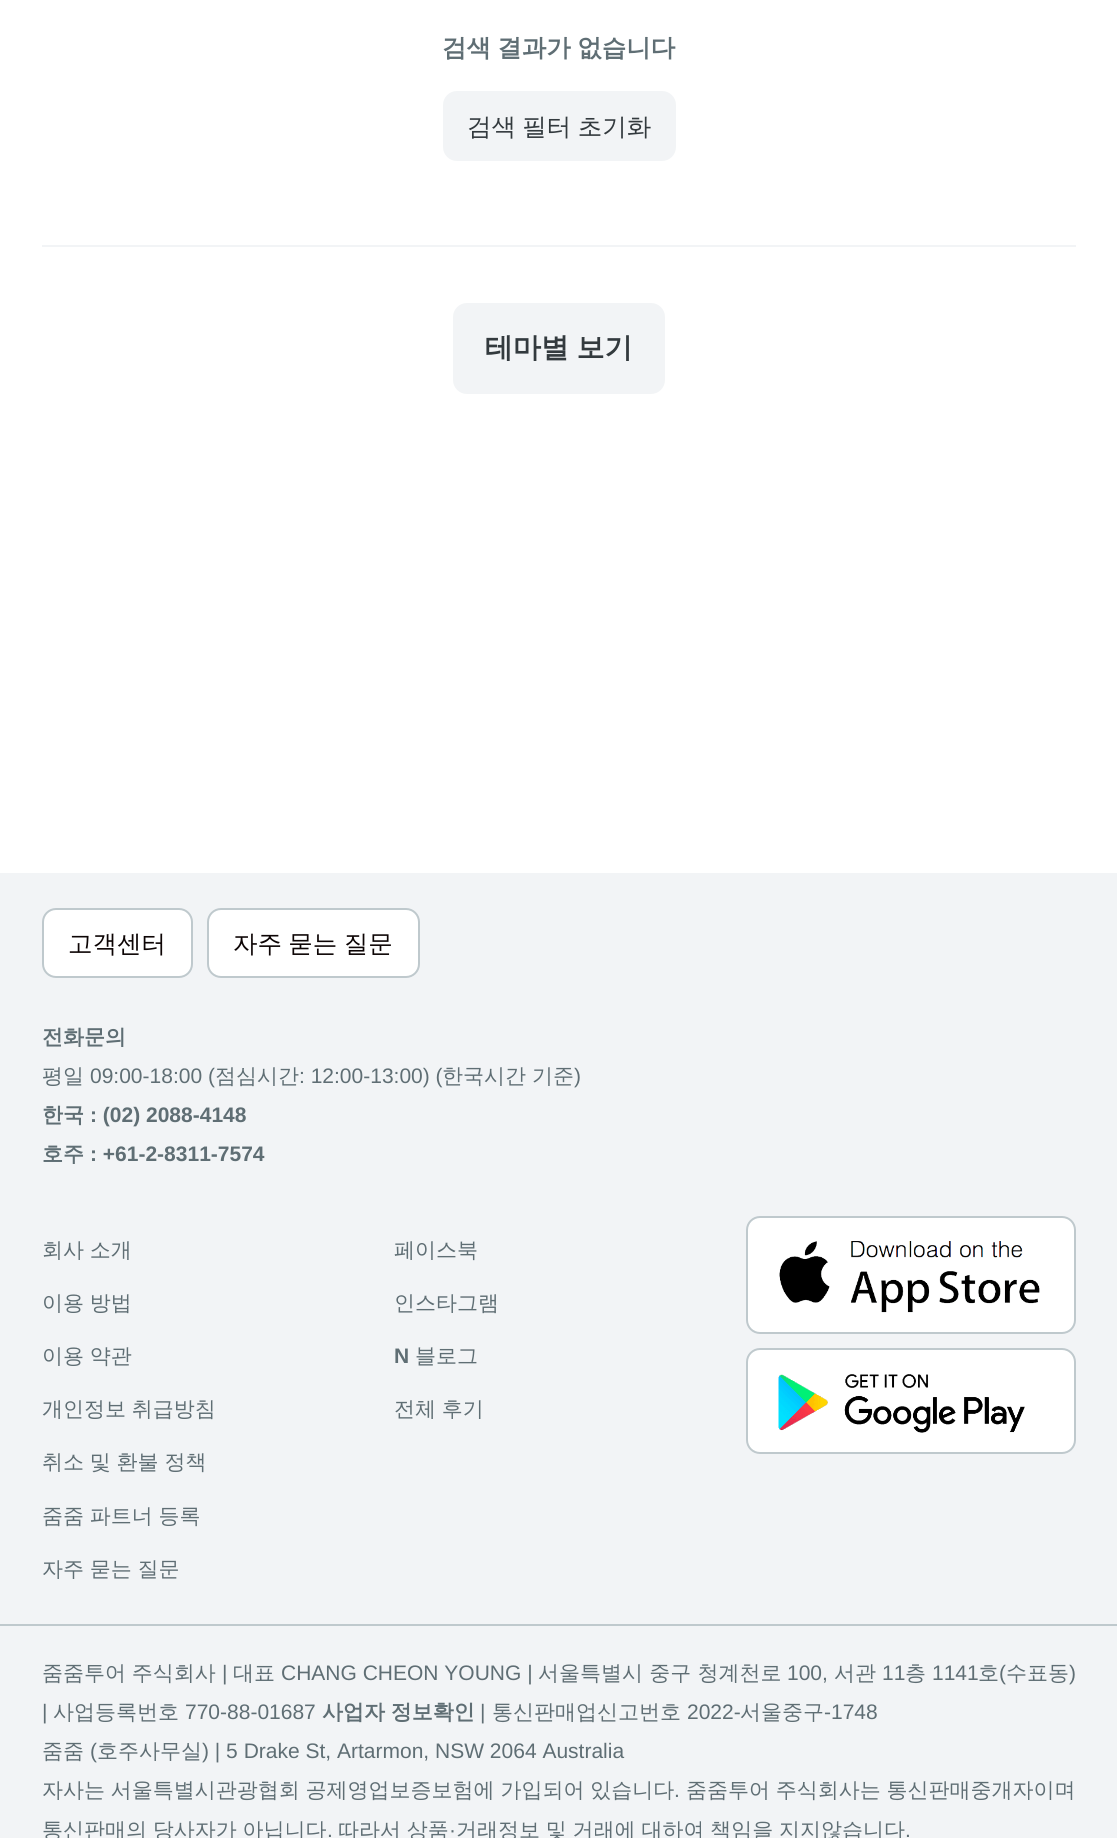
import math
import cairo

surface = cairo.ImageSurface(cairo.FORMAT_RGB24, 1117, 1838)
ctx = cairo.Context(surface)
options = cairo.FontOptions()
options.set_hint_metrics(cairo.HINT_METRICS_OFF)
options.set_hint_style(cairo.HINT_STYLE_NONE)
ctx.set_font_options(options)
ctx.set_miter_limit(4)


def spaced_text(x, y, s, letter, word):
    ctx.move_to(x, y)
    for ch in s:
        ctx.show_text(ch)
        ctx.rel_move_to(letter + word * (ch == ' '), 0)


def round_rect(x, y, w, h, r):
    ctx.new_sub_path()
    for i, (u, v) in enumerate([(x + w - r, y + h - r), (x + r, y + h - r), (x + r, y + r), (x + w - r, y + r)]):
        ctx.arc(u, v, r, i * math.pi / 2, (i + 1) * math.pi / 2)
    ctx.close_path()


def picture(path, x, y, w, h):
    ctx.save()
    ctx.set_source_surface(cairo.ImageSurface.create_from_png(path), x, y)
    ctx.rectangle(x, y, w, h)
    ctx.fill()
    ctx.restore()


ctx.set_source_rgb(1, 1, 1)
ctx.paint()
ctx.select_font_face("WenQuanYi Zen Hei", cairo.FONT_SLANT_NORMAL, cairo.FONT_WEIGHT_BOLD)
ctx.set_font_size(24.5)
ctx.set_source_rgb(0.373, 0.431, 0.455)
spaced_text(442, 56, "검색 결과가 없습니다", 0, -1)
ctx.set_source_rgb(0.949, 0.957, 0.961)
round_rect(443, 91, 233, 70, 14)
ctx.fill()
ctx.select_font_face("WenQuanYi Zen Hei Medium")
ctx.set_source_rgb(0.2, 0.227, 0.243)
spaced_text(467, 135, "검색 필터 초기화", 0, -1)
ctx.set_source_rgb(0.949, 0.957, 0.961)
ctx.rectangle(42, 245, 1034, 2)
ctx.fill()
round_rect(453, 303, 212, 91, 14)
ctx.fill()
ctx.select_font_face("WenQuanYi Zen Hei", cairo.FONT_SLANT_NORMAL, cairo.FONT_WEIGHT_BOLD)
ctx.set_font_size(28)
ctx.set_source_rgb(0.2, 0.227, 0.243)
spaced_text(485, 357, "테마별 보기", 0, -1)
ctx.set_source_rgb(0.949, 0.957, 0.961)
ctx.rectangle(0, 873, 1117, 965)
ctx.fill()
ctx.set_source_rgb(1, 1, 1)
round_rect(43, 909, 149, 68, 13)
ctx.fill_preserve()
ctx.set_source_rgb(0.749, 0.788, 0.804)
ctx.stroke()
ctx.select_font_face("WenQuanYi Zen Hei Medium")
ctx.set_font_size(24.5)
ctx.set_source_rgb(0.047, 0.016, 0.016)
ctx.move_to(68, 952)
ctx.show_text("고객센터")
ctx.set_source_rgb(1, 1, 1)
round_rect(208, 909, 211, 68, 13)
ctx.fill_preserve()
ctx.set_source_rgb(0.749, 0.788, 0.804)
ctx.stroke()
ctx.set_source_rgb(0.047, 0.016, 0.016)
spaced_text(233, 952, "자주 묻는 질문", 0, -1)
ctx.select_font_face("WenQuanYi Zen Hei", cairo.FONT_SLANT_NORMAL, cairo.FONT_WEIGHT_BOLD)
ctx.set_font_size(21)
ctx.set_source_rgb(0.373, 0.431, 0.455)
ctx.move_to(42, 1044)
ctx.show_text("전화문의")
ctx.select_font_face("WenQuanYi Zen Hei Medium")
ctx.move_to(42, 1083)
ctx.show_text("평일")
ctx.select_font_face("Liberation Sans")
ctx.move_to(90, 1083)
ctx.show_text("09:00-18:00 (")
ctx.select_font_face("WenQuanYi Zen Hei Medium")
ctx.move_to(215, 1083)
ctx.show_text("점심시간")
ctx.select_font_face("Liberation Sans")
ctx.move_to(299, 1083)
ctx.show_text(": 12:00-13:00) (")
ctx.select_font_face("WenQuanYi Zen Hei Medium")
ctx.move_to(442, 1083)
ctx.show_text("한국시간")
ctx.move_to(532, 1083)
ctx.show_text("기준")
ctx.select_font_face("Liberation Sans")
ctx.move_to(574, 1083)
ctx.show_text(")")
ctx.select_font_face("WenQuanYi Zen Hei", cairo.FONT_SLANT_NORMAL, cairo.FONT_WEIGHT_BOLD)
ctx.move_to(42, 1122)
ctx.show_text("한국")
ctx.select_font_face("Liberation Sans", cairo.FONT_SLANT_NORMAL, cairo.FONT_WEIGHT_BOLD)
ctx.move_to(90, 1122)
ctx.show_text(": (02) 2088-4148")
ctx.select_font_face("WenQuanYi Zen Hei", cairo.FONT_SLANT_NORMAL, cairo.FONT_WEIGHT_BOLD)
ctx.move_to(42, 1161)
ctx.show_text("호주")
ctx.select_font_face("Liberation Sans", cairo.FONT_SLANT_NORMAL, cairo.FONT_WEIGHT_BOLD)
ctx.move_to(90, 1161)
ctx.show_text(": +61-2-8311-7574")
ctx.select_font_face("WenQuanYi Zen Hei Medium")
spaced_text(42, 1257, "회사 소개", 0, -0.5)
spaced_text(42, 1310, "이용 방법", 0, -0.5)
spaced_text(42, 1363, "이용 약관", 0, -0.5)
spaced_text(42, 1416, "개인정보 취급방침", 0, -0.5)
spaced_text(42, 1469, "취소 및 환불 정책", 0, -0.5)
spaced_text(42, 1523, "줌줌 파트너 등록", 0, -0.5)
spaced_text(42, 1576, "자주 묻는 질문", 0, -0.5)
ctx.move_to(394, 1257)
ctx.show_text("페이스북")
ctx.move_to(394, 1310)
ctx.show_text("인스타그램")
ctx.select_font_face("Liberation Sans", cairo.FONT_SLANT_NORMAL, cairo.FONT_WEIGHT_BOLD)
ctx.move_to(394, 1363)
ctx.show_text("N")
ctx.select_font_face("WenQuanYi Zen Hei Medium")
ctx.move_to(415, 1363)
ctx.show_text("블로그")
spaced_text(394, 1416, "전체 후기", 0, -0.5)
ctx.set_source_rgb(1, 1, 1)
round_rect(747, 1217, 328, 116, 13)
ctx.fill_preserve()
ctx.set_source_rgb(0.749, 0.788, 0.804)
ctx.stroke()
picture("img1.png", 779, 1241, 261, 72)
ctx.set_source_rgb(1, 1, 1)
round_rect(747, 1349, 328, 104, 13)
ctx.fill_preserve()
ctx.set_source_rgb(0.749, 0.788, 0.804)
ctx.stroke()
picture("img2.png", 778, 1374, 247, 59)
ctx.rectangle(0, 1624, 1117, 2)
ctx.fill()
ctx.set_source_rgb(0.373, 0.431, 0.455)
spaced_text(42, 1680, "줌줌투어 주식회사", 0, -0.5)
ctx.select_font_face("Liberation Sans")
ctx.move_to(222, 1680)
ctx.show_text("|")
ctx.select_font_face("WenQuanYi Zen Hei Medium")
ctx.move_to(233, 1680)
ctx.show_text("대표")
ctx.select_font_face("Liberation Sans")
ctx.move_to(281, 1680)
ctx.show_text("CHANG CHEON YOUNG |")
ctx.select_font_face("WenQuanYi Zen Hei Medium")
ctx.move_to(538, 1680)
ctx.show_text("서울특별시 중구 청계천로")
ctx.select_font_face("Liberation Sans")
ctx.move_to(787, 1680)
ctx.show_text("100,")
ctx.select_font_face("WenQuanYi Zen Hei Medium")
ctx.move_to(834, 1680)
ctx.show_text("서관")
ctx.select_font_face("Liberation Sans")
ctx.move_to(882, 1680)
ctx.show_text("11")
ctx.select_font_face("WenQuanYi Zen Hei Medium")
ctx.move_to(905, 1680)
ctx.show_text("층")
ctx.select_font_face("Liberation Sans")
ctx.move_to(932, 1680)
ctx.show_text("1141")
ctx.select_font_face("WenQuanYi Zen Hei Medium")
ctx.move_to(978, 1680)
ctx.show_text("호")
ctx.select_font_face("Liberation Sans")
ctx.move_to(999, 1680)
ctx.show_text("(")
ctx.select_font_face("WenQuanYi Zen Hei Medium")
ctx.move_to(1006, 1680)
ctx.show_text("수표동")
ctx.select_font_face("Liberation Sans")
ctx.move_to(1069, 1680)
ctx.show_text(")")
ctx.move_to(42, 1719)
ctx.show_text("|")
ctx.select_font_face("WenQuanYi Zen Hei Medium")
ctx.move_to(53, 1719)
ctx.show_text("사업등록번호")
ctx.select_font_face("Liberation Sans")
ctx.move_to(185, 1719)
ctx.show_text("770-88-01687")
ctx.select_font_face("WenQuanYi Zen Hei", cairo.FONT_SLANT_NORMAL, cairo.FONT_WEIGHT_BOLD)
spaced_text(322, 1719, "사업자 정보확인", 0, -0.5)
ctx.select_font_face("Liberation Sans")
ctx.move_to(480, 1719)
ctx.show_text("|")
ctx.select_font_face("WenQuanYi Zen Hei Medium")
ctx.move_to(492, 1719)
ctx.show_text("통신판매업신고번호")
ctx.select_font_face("Liberation Sans")
ctx.move_to(687, 1719)
ctx.show_text("2022-")
ctx.select_font_face("WenQuanYi Zen Hei Medium")
ctx.move_to(740, 1719)
ctx.show_text("서울중구")
ctx.select_font_face("Liberation Sans")
ctx.move_to(824, 1719)
ctx.show_text("-1748")
ctx.select_font_face("WenQuanYi Zen Hei Medium")
ctx.move_to(42, 1758)
ctx.show_text("줌줌")
ctx.select_font_face("Liberation Sans")
ctx.move_to(90, 1758)
ctx.show_text("(")
ctx.select_font_face("WenQuanYi Zen Hei Medium")
ctx.move_to(97, 1758)
ctx.show_text("호주사무실")
ctx.select_font_face("Liberation Sans")
ctx.move_to(202, 1758)
ctx.show_text(") | 5 Drake St, Artarmon, NSW 2064 Australia")
ctx.select_font_face("WenQuanYi Zen Hei Medium")
spaced_text(42, 1797, "자사는 서울특별시관광협회 공제영업보증보험에 가입되어 있습니다", 0, -0.5)
ctx.select_font_face("Liberation Sans")
ctx.move_to(674, 1797)
ctx.show_text(".")
ctx.select_font_face("WenQuanYi Zen Hei Medium")
spaced_text(686, 1797, "줌줌투어 주식회사는 통신판매중개자이며", 0, -0.5)
spaced_text(42, 1837, "통신판매의 당사자가 아닙니다", 0, -0.5)
spaced_text(338, 1837, "따라서 상품", 0, -0.5)
ctx.select_font_face("Liberation Sans")
ctx.move_to(449, 1837)
ctx.show_text("·")
ctx.select_font_face("WenQuanYi Zen Hei Medium")
spaced_text(456, 1837, "거래정보 및 거래에 대하여 책임을 지지않습니다", 0, -0.5)
ctx.select_font_face("Liberation Sans")
ctx.move_to(327, 1837)
ctx.show_text(".")
ctx.move_to(905, 1837)
ctx.show_text(".")
surface.write_to_png("page.png")
